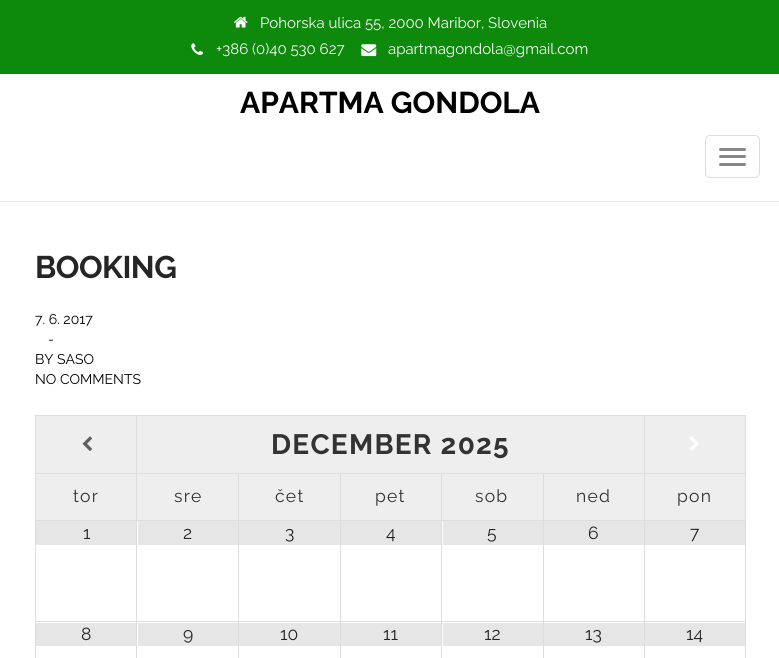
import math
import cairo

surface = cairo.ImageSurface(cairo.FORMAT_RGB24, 779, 658)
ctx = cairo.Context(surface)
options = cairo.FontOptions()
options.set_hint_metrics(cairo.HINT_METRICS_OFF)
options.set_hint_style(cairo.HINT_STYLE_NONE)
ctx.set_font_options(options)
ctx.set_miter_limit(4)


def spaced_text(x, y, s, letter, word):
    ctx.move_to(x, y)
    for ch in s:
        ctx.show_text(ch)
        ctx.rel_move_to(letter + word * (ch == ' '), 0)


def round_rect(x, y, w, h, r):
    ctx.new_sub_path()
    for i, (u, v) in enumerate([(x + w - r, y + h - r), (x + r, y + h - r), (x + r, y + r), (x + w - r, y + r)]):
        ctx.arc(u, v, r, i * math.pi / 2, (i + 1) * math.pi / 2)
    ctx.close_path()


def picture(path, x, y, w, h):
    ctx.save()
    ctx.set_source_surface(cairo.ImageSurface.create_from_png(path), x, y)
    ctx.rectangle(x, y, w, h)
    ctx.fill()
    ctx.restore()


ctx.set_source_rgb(1, 1, 1)
ctx.paint()
ctx.set_source_rgb(0.051, 0.537, 0.043)
ctx.rectangle(0, 0, 779, 74)
ctx.fill()
picture("img1.png", 234, 16, 14, 12)
ctx.select_font_face("Raleway")
ctx.set_font_size(15)
ctx.set_source_rgb(1, 1, 1)
ctx.move_to(260, 28)
ctx.show_text("Pohorska ulica 55, 2000 Maribor, Slovenia")
picture("img2.png", 191, 43, 12, 12)
ctx.move_to(216, 54)
ctx.show_text("+386 (0)40 530 627")
picture("img3.png", 361, 44, 16, 13)
ctx.move_to(388, 54)
ctx.show_text("apartmagondola@gmail.com")
ctx.set_source_rgb(0.918, 0.918, 0.918)
ctx.rectangle(0, 201, 779, 1)
ctx.fill()
ctx.select_font_face("Raleway", cairo.FONT_SLANT_NORMAL, cairo.FONT_WEIGHT_BOLD)
ctx.set_font_size(30)
ctx.set_source_rgb(0, 0, 0)
ctx.move_to(240, 113)
ctx.show_text("APARTMA GONDOLA")
round_rect(705.5, 135.5, 54, 42, 4.5)
ctx.set_source_rgb(0.867, 0.867, 0.867)
ctx.set_line_width(1)
ctx.stroke()
ctx.set_source_rgb(0.533, 0.533, 0.533)
round_rect(719, 148, 27, 3, 1.5)
ctx.fill()
round_rect(719, 155, 27, 3, 1.5)
ctx.fill()
round_rect(719, 163, 27, 3, 1.5)
ctx.fill()
ctx.set_font_size(31.25)
ctx.set_source_rgb(0.145, 0.145, 0.145)
spaced_text(35, 278, "BOOKING", -0.5, 0)
ctx.select_font_face("Raleway")
ctx.set_font_size(14)
ctx.set_source_rgb(0, 0, 0)
ctx.move_to(35, 324)
ctx.show_text("7. 6. 2017")
ctx.move_to(48, 344)
ctx.show_text("-")
ctx.move_to(35, 364)
ctx.show_text("BY SASO")
ctx.move_to(35, 384)
ctx.show_text("NO COMMENTS")
ctx.set_source_rgb(0.933, 0.933, 0.933)
ctx.rectangle(36, 416, 608, 57)
ctx.fill()
ctx.set_source_rgb(0.867, 0.867, 0.867)
ctx.rectangle(644, 415, 102, 1)
ctx.fill()
ctx.rectangle(644, 473, 102, 1)
ctx.fill()
ctx.rectangle(644, 520, 102, 1)
ctx.fill()
ctx.rectangle(644, 621, 102, 1)
ctx.fill()
ctx.rectangle(644, 621, 1, 37)
ctx.fill()
ctx.rectangle(543, 621, 102, 1)
ctx.fill()
ctx.rectangle(644, 520, 1, 103)
ctx.fill()
ctx.rectangle(543, 520, 102, 1)
ctx.fill()
ctx.rectangle(644, 473, 1, 48)
ctx.fill()
ctx.rectangle(543, 473, 102, 1)
ctx.fill()
ctx.rectangle(644, 415, 1, 59)
ctx.fill()
ctx.rectangle(136, 415, 509, 1)
ctx.fill()
ctx.rectangle(543, 621, 1, 37)
ctx.fill()
ctx.rectangle(441, 621, 103, 1)
ctx.fill()
ctx.rectangle(543, 520, 1, 103)
ctx.fill()
ctx.rectangle(441, 520, 103, 1)
ctx.fill()
ctx.rectangle(543, 473, 1, 48)
ctx.fill()
ctx.rectangle(441, 473, 103, 1)
ctx.fill()
ctx.rectangle(441, 621, 1, 37)
ctx.fill()
ctx.rectangle(340, 621, 103, 1)
ctx.fill()
ctx.rectangle(441, 520, 1, 103)
ctx.fill()
ctx.rectangle(340, 520, 103, 1)
ctx.fill()
ctx.rectangle(441, 473, 1, 48)
ctx.fill()
ctx.rectangle(340, 473, 103, 1)
ctx.fill()
ctx.rectangle(340, 621, 1, 37)
ctx.fill()
ctx.rectangle(238, 621, 103, 1)
ctx.fill()
ctx.rectangle(340, 520, 1, 103)
ctx.fill()
ctx.rectangle(238, 520, 103, 1)
ctx.fill()
ctx.rectangle(340, 473, 1, 48)
ctx.fill()
ctx.rectangle(238, 473, 103, 1)
ctx.fill()
ctx.rectangle(238, 621, 1, 37)
ctx.fill()
ctx.rectangle(136, 621, 103, 1)
ctx.fill()
ctx.rectangle(238, 520, 1, 103)
ctx.fill()
ctx.rectangle(136, 520, 103, 1)
ctx.fill()
ctx.rectangle(238, 473, 1, 48)
ctx.fill()
ctx.rectangle(136, 473, 103, 1)
ctx.fill()
ctx.set_source_rgb(0.933, 0.933, 0.933)
ctx.rectangle(36, 474, 202, 46)
ctx.fill()
ctx.set_source_rgb(0.867, 0.867, 0.867)
ctx.rectangle(136, 621, 1, 37)
ctx.fill()
ctx.rectangle(35, 621, 103, 1)
ctx.fill()
ctx.rectangle(136, 520, 1, 103)
ctx.fill()
ctx.rectangle(35, 520, 103, 1)
ctx.fill()
ctx.rectangle(136, 473, 1, 48)
ctx.fill()
ctx.rectangle(35, 473, 103, 1)
ctx.fill()
ctx.rectangle(136, 415, 1, 59)
ctx.fill()
ctx.rectangle(35, 415, 103, 1)
ctx.fill()
ctx.rectangle(35, 621, 1, 37)
ctx.fill()
ctx.rectangle(35, 520, 1, 103)
ctx.fill()
ctx.rectangle(35, 473, 1, 48)
ctx.fill()
ctx.rectangle(35, 415, 1, 59)
ctx.fill()
picture("img4.png", 82, 436, 10, 15)
ctx.set_source_rgb(0.933, 0.933, 0.933)
ctx.rectangle(645, 416, 100, 57)
ctx.fill()
ctx.set_source_rgb(0.867, 0.867, 0.867)
ctx.rectangle(745, 621, 1, 37)
ctx.fill()
ctx.rectangle(745, 520, 1, 103)
ctx.fill()
ctx.rectangle(745, 473, 1, 48)
ctx.fill()
ctx.rectangle(745, 415, 1, 59)
ctx.fill()
picture("img5.png", 689, 436, 10, 15)
ctx.select_font_face("Raleway", cairo.FONT_SLANT_NORMAL, cairo.FONT_WEIGHT_BOLD)
ctx.set_font_size(28)
ctx.set_source_rgb(0.2, 0.2, 0.2)
spaced_text(271, 454, "DECEMBER 2025", 1.25, 0)
ctx.select_font_face("Raleway")
ctx.set_font_size(17.5)
spaced_text(73, 502, "tor", 1.25, 0)
spaced_text(174, 502, "sre", 1.25, 0)
ctx.set_source_rgb(0.933, 0.933, 0.933)
ctx.rectangle(239, 474, 101, 46)
ctx.fill()
ctx.set_source_rgb(0.2, 0.2, 0.2)
spaced_text(275, 502, "čet", 1.25, 0)
ctx.set_source_rgb(0.933, 0.933, 0.933)
ctx.rectangle(341, 474, 100, 46)
ctx.fill()
ctx.set_source_rgb(0.2, 0.2, 0.2)
spaced_text(375, 502, "pet", 1.25, 0)
ctx.set_source_rgb(0.933, 0.933, 0.933)
ctx.rectangle(442, 474, 101, 46)
ctx.fill()
ctx.set_source_rgb(0.2, 0.2, 0.2)
spaced_text(475, 502, "sob", 1.25, 0)
ctx.set_source_rgb(0.933, 0.933, 0.933)
ctx.rectangle(544, 474, 100, 46)
ctx.fill()
ctx.set_source_rgb(0.2, 0.2, 0.2)
spaced_text(576, 502, "ned", 1.25, 0)
ctx.set_source_rgb(0.933, 0.933, 0.933)
ctx.rectangle(645, 474, 100, 46)
ctx.fill()
ctx.set_source_rgb(0.2, 0.2, 0.2)
spaced_text(677, 502, "pon", 1.25, 0)
ctx.set_source_rgb(0.902, 0.902, 0.902)
ctx.rectangle(36, 521, 100, 24)
ctx.fill()
ctx.set_source_rgb(0.145, 0.145, 0.145)
ctx.move_to(83, 539)
ctx.show_text("1")
ctx.set_source_rgb(0.902, 0.902, 0.902)
ctx.rectangle(138, 521, 100, 24)
ctx.fill()
ctx.set_source_rgb(0.145, 0.145, 0.145)
ctx.move_to(183, 539)
ctx.show_text("2")
ctx.set_source_rgb(0.902, 0.902, 0.902)
ctx.rectangle(239, 521, 101, 24)
ctx.fill()
ctx.set_source_rgb(0.145, 0.145, 0.145)
ctx.move_to(285, 539)
ctx.show_text("3")
ctx.set_source_rgb(0.902, 0.902, 0.902)
ctx.rectangle(341, 521, 100, 24)
ctx.fill()
ctx.set_source_rgb(0.145, 0.145, 0.145)
ctx.move_to(386, 539)
ctx.show_text("4")
ctx.set_source_rgb(0.902, 0.902, 0.902)
ctx.rectangle(443, 521, 100, 24)
ctx.fill()
ctx.set_source_rgb(0.145, 0.145, 0.145)
ctx.move_to(487, 539)
ctx.show_text("5")
ctx.set_source_rgb(0.902, 0.902, 0.902)
ctx.rectangle(544, 521, 100, 24)
ctx.fill()
ctx.set_source_rgb(0.145, 0.145, 0.145)
ctx.move_to(588, 539)
ctx.show_text("6")
ctx.set_source_rgb(0.902, 0.902, 0.902)
ctx.rectangle(645, 521, 100, 24)
ctx.fill()
ctx.set_source_rgb(0.145, 0.145, 0.145)
ctx.move_to(690, 539)
ctx.show_text("7")
ctx.set_source_rgb(0.902, 0.902, 0.902)
ctx.rectangle(36, 623, 100, 23)
ctx.fill()
ctx.set_source_rgb(0.145, 0.145, 0.145)
ctx.move_to(81, 640)
ctx.show_text("8")
ctx.set_source_rgb(0.902, 0.902, 0.902)
ctx.rectangle(138, 623, 100, 23)
ctx.fill()
ctx.set_source_rgb(0.145, 0.145, 0.145)
ctx.move_to(183, 640)
ctx.show_text("9")
ctx.set_source_rgb(0.902, 0.902, 0.902)
ctx.rectangle(239, 623, 101, 23)
ctx.fill()
ctx.set_source_rgb(0.145, 0.145, 0.145)
ctx.move_to(280, 640)
ctx.show_text("10")
ctx.set_source_rgb(0.902, 0.902, 0.902)
ctx.rectangle(341, 623, 100, 23)
ctx.fill()
ctx.set_source_rgb(0.145, 0.145, 0.145)
ctx.move_to(383, 640)
ctx.show_text("11")
ctx.set_source_rgb(0.902, 0.902, 0.902)
ctx.rectangle(443, 623, 100, 23)
ctx.fill()
ctx.set_source_rgb(0.145, 0.145, 0.145)
ctx.move_to(484, 640)
ctx.show_text("12")
ctx.set_source_rgb(0.902, 0.902, 0.902)
ctx.rectangle(544, 623, 100, 23)
ctx.fill()
ctx.set_source_rgb(0.145, 0.145, 0.145)
ctx.move_to(585, 640)
ctx.show_text("13")
ctx.set_source_rgb(0.902, 0.902, 0.902)
ctx.rectangle(645, 623, 100, 23)
ctx.fill()
ctx.set_source_rgb(0.145, 0.145, 0.145)
ctx.move_to(686, 640)
ctx.show_text("14")
surface.write_to_png("page.png")
